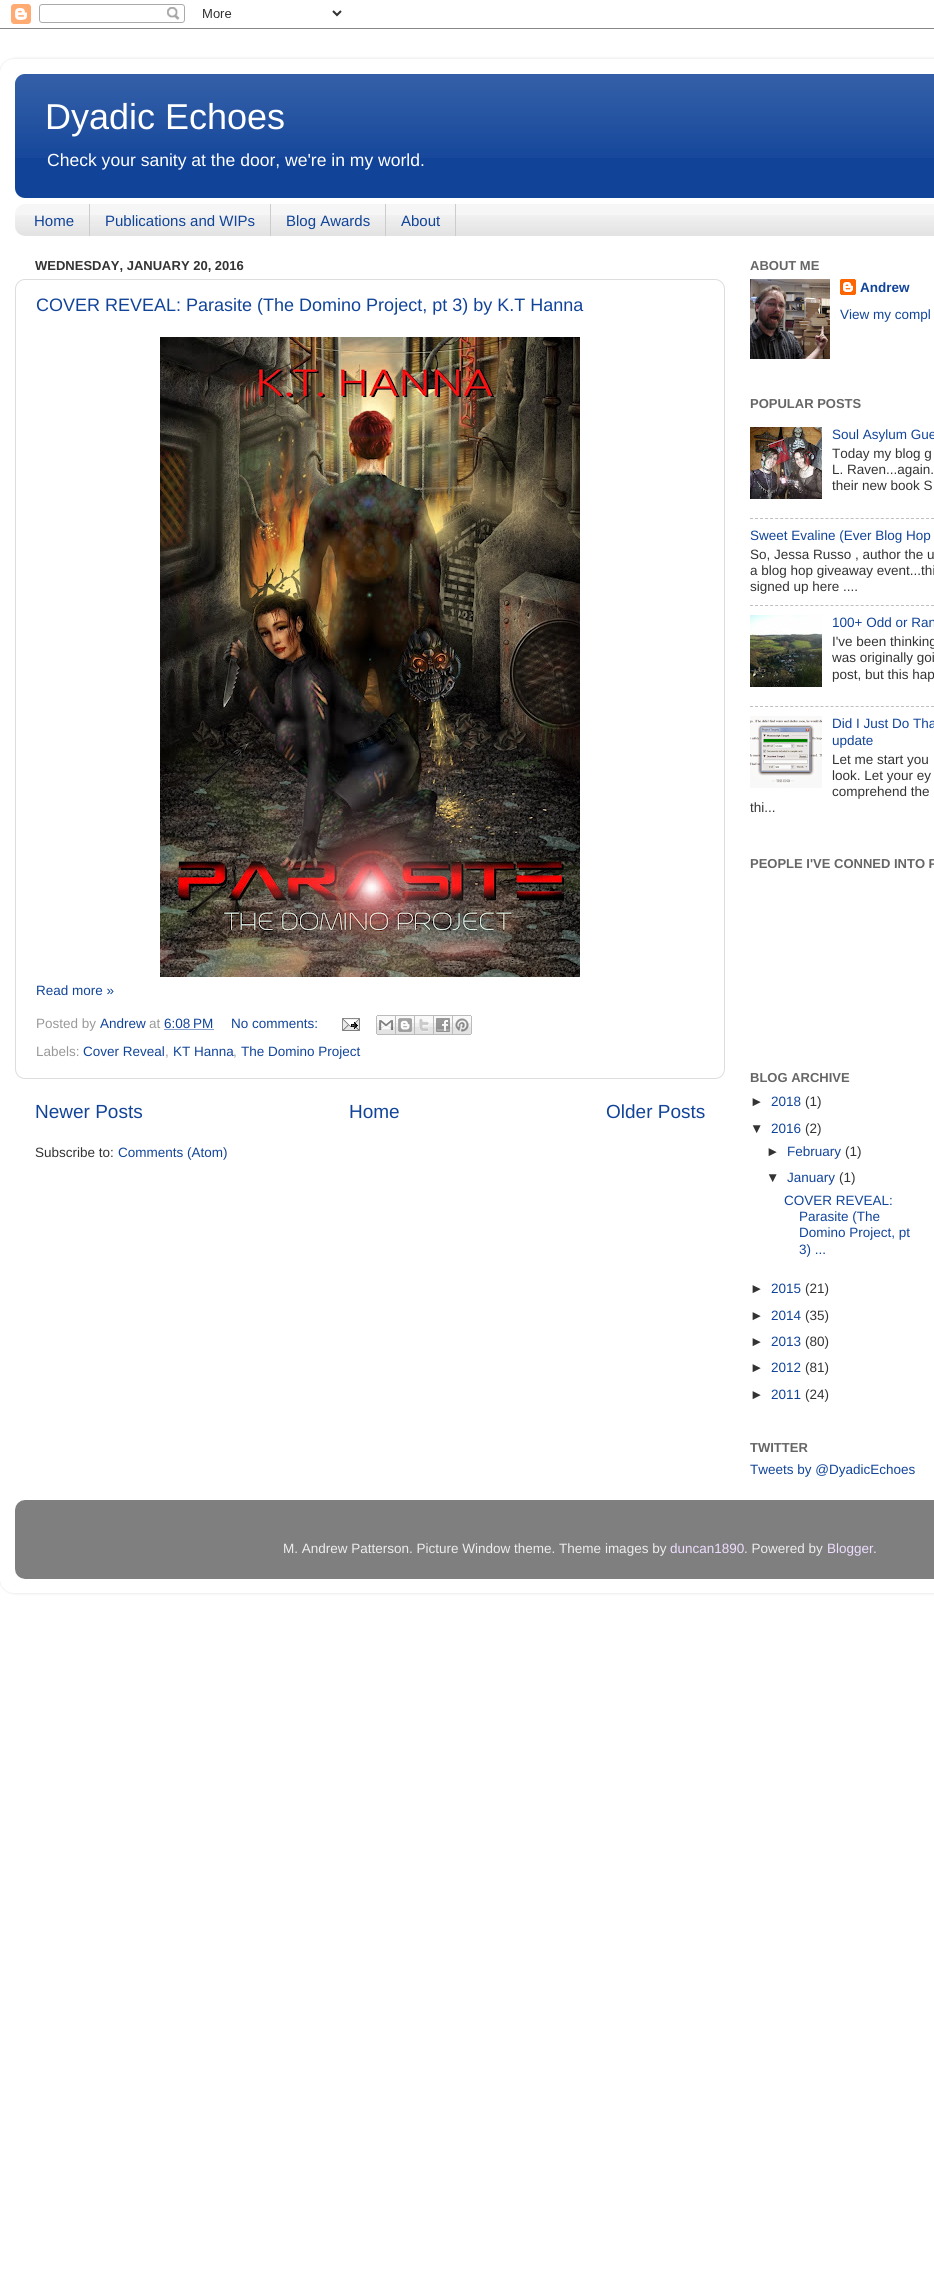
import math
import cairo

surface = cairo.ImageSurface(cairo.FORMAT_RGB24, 934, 2290)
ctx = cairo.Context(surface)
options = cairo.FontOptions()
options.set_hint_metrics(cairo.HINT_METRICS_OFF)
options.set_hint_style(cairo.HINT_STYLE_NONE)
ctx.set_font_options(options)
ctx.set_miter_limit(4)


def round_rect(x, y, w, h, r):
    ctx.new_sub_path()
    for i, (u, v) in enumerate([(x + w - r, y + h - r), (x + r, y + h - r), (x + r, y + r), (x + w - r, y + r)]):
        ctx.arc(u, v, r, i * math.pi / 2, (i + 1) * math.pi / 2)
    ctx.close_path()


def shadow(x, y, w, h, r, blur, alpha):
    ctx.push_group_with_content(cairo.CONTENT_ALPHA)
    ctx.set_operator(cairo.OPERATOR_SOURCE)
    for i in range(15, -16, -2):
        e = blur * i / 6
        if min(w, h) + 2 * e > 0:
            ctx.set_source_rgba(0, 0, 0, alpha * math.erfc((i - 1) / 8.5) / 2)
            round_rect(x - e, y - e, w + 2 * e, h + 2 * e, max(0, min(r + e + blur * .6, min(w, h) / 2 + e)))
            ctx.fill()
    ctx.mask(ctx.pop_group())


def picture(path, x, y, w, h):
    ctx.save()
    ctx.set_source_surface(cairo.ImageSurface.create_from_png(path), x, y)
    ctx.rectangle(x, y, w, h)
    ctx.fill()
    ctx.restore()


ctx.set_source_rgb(1, 1, 1)
ctx.paint()
picture("img1.png", 0, 4, 934, 25)
ctx.save()
ctx.set_fill_rule(cairo.FILL_RULE_EVEN_ODD)
ctx.new_path()
ctx.move_to(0, 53)
ctx.line_to(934, 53)
ctx.line_to(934, 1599)
ctx.line_to(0, 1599)
ctx.close_path()
ctx.move_to(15, 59)
ctx.line_to(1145, 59)
ctx.curve_to(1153.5, 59, 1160, 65.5, 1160, 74)
ctx.line_to(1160, 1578)
ctx.curve_to(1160, 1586.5, 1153.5, 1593, 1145, 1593)
ctx.line_to(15, 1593)
ctx.curve_to(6.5, 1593, 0, 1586.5, 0, 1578)
ctx.line_to(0, 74)
ctx.curve_to(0, 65.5, 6.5, 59, 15, 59)
ctx.close_path()
ctx.clip()
ctx.set_source_rgb(0, 0, 0)
shadow(0, 59, 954, 1534, 15, 1.5, 0.15)
ctx.restore()
ctx.set_source_rgb(0.067, 0.267, 0.6)
round_rect(15, 74, 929, 124, 10)
ctx.fill()
picture("img2.png", 15, 74, 919, 84)
ctx.select_font_face("Liberation Sans")
ctx.set_font_size(36)
ctx.set_source_rgb(1, 1, 1)
ctx.move_to(45, 129)
ctx.show_text("Dyadic Echoes")
ctx.set_font_size(17.55)
ctx.move_to(47, 166)
ctx.show_text("Check your sanity at the door, we're in my world.")
ctx.set_source_rgb(0.961, 0.961, 0.961)
round_rect(15, 204, 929, 32, 10)
ctx.fill()
picture("img3.png", 15, 215, 919, 21)
ctx.set_source_rgb(0.8, 0.8, 0.8)
ctx.rectangle(89, 204, 1, 32)
ctx.fill()
ctx.set_font_size(15)
ctx.set_source_rgb(0.067, 0.267, 0.6)
ctx.move_to(34, 226)
ctx.show_text("Home")
ctx.set_source_rgb(0.8, 0.8, 0.8)
ctx.rectangle(270, 204, 1, 32)
ctx.fill()
ctx.set_source_rgb(0.067, 0.267, 0.6)
ctx.move_to(105, 226)
ctx.show_text("Publications and WIPs")
ctx.set_source_rgb(0.8, 0.8, 0.8)
ctx.rectangle(385, 204, 1, 32)
ctx.fill()
ctx.set_source_rgb(0.067, 0.267, 0.6)
ctx.move_to(286, 226)
ctx.show_text("Blog Awards")
ctx.set_source_rgb(0.8, 0.8, 0.8)
ctx.rectangle(455, 204, 1, 32)
ctx.fill()
ctx.set_source_rgb(0.067, 0.267, 0.6)
ctx.move_to(401, 226)
ctx.show_text("About")
ctx.select_font_face("Liberation Sans", cairo.FONT_SLANT_NORMAL, cairo.FONT_WEIGHT_BOLD)
ctx.set_font_size(13)
ctx.set_source_rgb(0.2, 0.2, 0.2)
ctx.move_to(35, 270)
ctx.show_text("WEDNESDAY, JANUARY 20, 2016")
round_rect(15.5, 279.5, 709, 799, 9.5)
ctx.set_source_rgb(0.867, 0.867, 0.867)
ctx.set_line_width(1)
ctx.stroke()
ctx.select_font_face("Liberation Sans")
ctx.set_font_size(18)
ctx.set_source_rgb(0.067, 0.267, 0.6)
ctx.move_to(36, 311)
ctx.show_text("COVER REVEAL: Parasite (The Domino Project, pt 3) by K.T Hanna")
picture("img4.png", 160, 337, 420, 640)
ctx.set_font_size(13.5)
ctx.move_to(36, 995)
ctx.show_text("Read more »")
ctx.set_source_rgb(0.6, 0.6, 0.6)
ctx.move_to(36, 1028)
ctx.show_text("Posted by")
ctx.set_source_rgb(0.067, 0.267, 0.6)
ctx.move_to(100, 1028)
ctx.show_text("Andrew")
ctx.set_source_rgb(0.6, 0.6, 0.6)
ctx.move_to(149, 1028)
ctx.show_text("at")
ctx.set_source_rgb(0.067, 0.267, 0.6)
ctx.move_to(164, 1028)
ctx.show_text("6:08 PM")
ctx.new_path()
ctx.move_to(164.5, 1029.5)
ctx.line_to(213.5, 1029.5)
ctx.set_dash([1, 1])
ctx.stroke()
ctx.move_to(231, 1028)
ctx.show_text("No comments:")
picture("img5.png", 342, 1018, 18, 13)
picture("img6.png", 376, 1015, 20, 20)
picture("img7.png", 396, 1015, 19, 20)
picture("img8.png", 415, 1015, 19, 20)
picture("img9.png", 434, 1015, 19, 20)
picture("img10.png", 453, 1015, 19, 20)
ctx.set_source_rgb(0.6, 0.6, 0.6)
ctx.move_to(36, 1056)
ctx.show_text("Labels:")
ctx.set_source_rgb(0.067, 0.267, 0.6)
ctx.move_to(83, 1056)
ctx.show_text("Cover Reveal")
ctx.set_source_rgb(0.6, 0.6, 0.6)
ctx.move_to(165, 1056)
ctx.show_text(",")
ctx.set_source_rgb(0.067, 0.267, 0.6)
ctx.move_to(173, 1056)
ctx.show_text("KT Hanna")
ctx.set_source_rgb(0.6, 0.6, 0.6)
ctx.move_to(233, 1056)
ctx.show_text(",")
ctx.set_source_rgb(0.067, 0.267, 0.6)
ctx.move_to(241, 1056)
ctx.show_text("The Domino Project")
ctx.set_font_size(19)
ctx.move_to(35, 1118)
ctx.show_text("Newer Posts")
ctx.move_to(349, 1118)
ctx.show_text("Home")
ctx.move_to(606, 1118)
ctx.show_text("Older Posts")
ctx.set_font_size(13.5)
ctx.set_source_rgb(0.2, 0.2, 0.2)
ctx.move_to(35, 1157)
ctx.show_text("Subscribe to:")
ctx.set_source_rgb(0.067, 0.267, 0.6)
ctx.move_to(118, 1157)
ctx.show_text("Comments (Atom)")
ctx.select_font_face("Liberation Sans", cairo.FONT_SLANT_NORMAL, cairo.FONT_WEIGHT_BOLD)
ctx.set_font_size(13)
ctx.set_source_rgb(0.4, 0.4, 0.4)
ctx.move_to(750, 270)
ctx.show_text("ABOUT ME")
picture("img11.png", 750, 279, 80, 80)
picture("img12.png", 840, 279, 16, 16)
ctx.set_font_size(13.5)
ctx.set_source_rgb(0.067, 0.267, 0.6)
ctx.move_to(860, 292)
ctx.show_text("Andrew")
ctx.select_font_face("Liberation Sans")
ctx.move_to(840, 319)
ctx.show_text("View my compl")
ctx.select_font_face("Liberation Sans", cairo.FONT_SLANT_NORMAL, cairo.FONT_WEIGHT_BOLD)
ctx.set_font_size(13)
ctx.set_source_rgb(0.4, 0.4, 0.4)
ctx.move_to(750, 408)
ctx.show_text("POPULAR POSTS")
picture("img13.png", 750, 427, 72, 72)
ctx.select_font_face("Liberation Sans")
ctx.set_font_size(13.5)
ctx.set_source_rgb(0.067, 0.267, 0.6)
ctx.move_to(832, 439)
ctx.show_text("Soul Asylum Gue")
ctx.set_source_rgb(0.2, 0.2, 0.2)
ctx.move_to(832, 458)
ctx.show_text("Today my blog g")
ctx.move_to(832, 474)
ctx.show_text("L. Raven...again.")
ctx.move_to(832, 490)
ctx.show_text("their new book S")
ctx.new_path()
ctx.move_to(750, 518.5)
ctx.line_to(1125, 518.5)
ctx.set_source_rgb(0.753, 0.753, 0.753)
ctx.set_dash([3, 2.03])
ctx.stroke()
ctx.set_source_rgb(0.067, 0.267, 0.6)
ctx.move_to(750, 540)
ctx.show_text("Sweet Evaline (Ever Blog Hop")
ctx.set_source_rgb(0.2, 0.2, 0.2)
ctx.move_to(750, 559)
ctx.show_text("So, Jessa Russo , author the u")
ctx.move_to(750, 575)
ctx.show_text("a blog hop giveaway event...thi")
ctx.move_to(750, 591)
ctx.show_text("signed up here ....")
ctx.new_path()
ctx.move_to(750, 605.5)
ctx.line_to(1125, 605.5)
ctx.set_source_rgb(0.753, 0.753, 0.753)
ctx.stroke()
picture("img14.png", 750, 615, 72, 72)
ctx.set_source_rgb(0.067, 0.267, 0.6)
ctx.move_to(832, 627)
ctx.show_text("100+ Odd or Ran")
ctx.set_source_rgb(0.2, 0.2, 0.2)
ctx.move_to(832, 646)
ctx.show_text("I've been thinking")
ctx.move_to(832, 662)
ctx.show_text("was originally goi")
ctx.move_to(832, 679)
ctx.show_text("post, but this hap")
ctx.new_path()
ctx.move_to(750, 706.5)
ctx.line_to(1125, 706.5)
ctx.set_source_rgb(0.753, 0.753, 0.753)
ctx.stroke()
picture("img15.png", 750, 716, 72, 72)
ctx.set_source_rgb(0.067, 0.267, 0.6)
ctx.move_to(832, 728)
ctx.show_text("Did I Just Do Tha")
ctx.move_to(832, 745)
ctx.show_text("update")
ctx.set_source_rgb(0.2, 0.2, 0.2)
ctx.move_to(832, 764)
ctx.show_text("Let me start you")
ctx.move_to(832, 780)
ctx.show_text("look. Let your ey")
ctx.move_to(832, 796)
ctx.show_text("comprehend the")
ctx.move_to(750, 812)
ctx.show_text("thi...")
ctx.select_font_face("Liberation Sans", cairo.FONT_SLANT_NORMAL, cairo.FONT_WEIGHT_BOLD)
ctx.set_font_size(13)
ctx.set_source_rgb(0.4, 0.4, 0.4)
ctx.move_to(750, 868)
ctx.show_text("PEOPLE I'VE CONNED INTO P")
ctx.move_to(750, 1082)
ctx.show_text("BLOG ARCHIVE")
ctx.select_font_face("Liberation Sans")
ctx.set_font_size(13.5)
ctx.set_source_rgb(0.2, 0.2, 0.2)
ctx.move_to(750, 1106)
ctx.show_text("►")
ctx.set_source_rgb(0.067, 0.267, 0.6)
ctx.move_to(771, 1106)
ctx.show_text("2018")
ctx.set_source_rgb(0.2, 0.2, 0.2)
ctx.move_to(805, 1106)
ctx.show_text("(1)")
ctx.move_to(750, 1133)
ctx.show_text("▼")
ctx.set_source_rgb(0.067, 0.267, 0.6)
ctx.move_to(771, 1133)
ctx.show_text("2016")
ctx.set_source_rgb(0.2, 0.2, 0.2)
ctx.move_to(805, 1133)
ctx.show_text("(2)")
ctx.move_to(766, 1156)
ctx.show_text("►")
ctx.set_source_rgb(0.067, 0.267, 0.6)
ctx.move_to(787, 1156)
ctx.show_text("February")
ctx.set_source_rgb(0.2, 0.2, 0.2)
ctx.move_to(845, 1156)
ctx.show_text("(1)")
ctx.move_to(766, 1182)
ctx.show_text("▼")
ctx.set_source_rgb(0.067, 0.267, 0.6)
ctx.move_to(787, 1182)
ctx.show_text("January")
ctx.set_source_rgb(0.2, 0.2, 0.2)
ctx.move_to(839, 1182)
ctx.show_text("(1)")
ctx.set_source_rgb(0.067, 0.267, 0.6)
ctx.move_to(784, 1205)
ctx.show_text("COVER REVEAL:")
ctx.move_to(799, 1221)
ctx.show_text("Parasite (The")
ctx.move_to(799, 1237)
ctx.show_text("Domino Project, pt")
ctx.move_to(799, 1254)
ctx.show_text("3) ...")
ctx.set_source_rgb(0.2, 0.2, 0.2)
ctx.move_to(750, 1293)
ctx.show_text("►")
ctx.set_source_rgb(0.067, 0.267, 0.6)
ctx.move_to(771, 1293)
ctx.show_text("2015")
ctx.set_source_rgb(0.2, 0.2, 0.2)
ctx.move_to(805, 1293)
ctx.show_text("(21)")
ctx.move_to(750, 1320)
ctx.show_text("►")
ctx.set_source_rgb(0.067, 0.267, 0.6)
ctx.move_to(771, 1320)
ctx.show_text("2014")
ctx.set_source_rgb(0.2, 0.2, 0.2)
ctx.move_to(805, 1320)
ctx.show_text("(35)")
ctx.move_to(750, 1346)
ctx.show_text("►")
ctx.set_source_rgb(0.067, 0.267, 0.6)
ctx.move_to(771, 1346)
ctx.show_text("2013")
ctx.set_source_rgb(0.2, 0.2, 0.2)
ctx.move_to(805, 1346)
ctx.show_text("(80)")
ctx.move_to(750, 1372)
ctx.show_text("►")
ctx.set_source_rgb(0.067, 0.267, 0.6)
ctx.move_to(771, 1372)
ctx.show_text("2012")
ctx.set_source_rgb(0.2, 0.2, 0.2)
ctx.move_to(805, 1372)
ctx.show_text("(81)")
ctx.move_to(750, 1399)
ctx.show_text("►")
ctx.set_source_rgb(0.067, 0.267, 0.6)
ctx.move_to(771, 1399)
ctx.show_text("2011")
ctx.set_source_rgb(0.2, 0.2, 0.2)
ctx.move_to(805, 1399)
ctx.show_text("(24)")
ctx.select_font_face("Liberation Sans", cairo.FONT_SLANT_NORMAL, cairo.FONT_WEIGHT_BOLD)
ctx.set_font_size(13)
ctx.set_source_rgb(0.4, 0.4, 0.4)
ctx.move_to(750, 1452)
ctx.show_text("TWITTER")
ctx.select_font_face("Liberation Sans")
ctx.set_font_size(13.5)
ctx.set_source_rgb(0.067, 0.267, 0.6)
ctx.move_to(750, 1474)
ctx.show_text("Tweets by @DyadicEchoes")
picture("img16.png", 15, 1500, 919, 79)
ctx.set_source_rgb(0.933, 0.933, 0.933)
ctx.move_to(283, 1553)
ctx.show_text("M. Andrew Patterson. Picture Window theme. Theme images by")
ctx.set_source_rgb(0.933, 0.867, 1)
ctx.move_to(670, 1553)
ctx.show_text("duncan1890")
ctx.set_source_rgb(0.933, 0.933, 0.933)
ctx.move_to(744, 1553)
ctx.show_text(". Powered by")
ctx.set_source_rgb(0.933, 0.867, 1)
ctx.move_to(827, 1553)
ctx.show_text("Blogger")
ctx.set_source_rgb(0.933, 0.933, 0.933)
ctx.move_to(873, 1553)
ctx.show_text(".")
surface.write_to_png("page.png")
